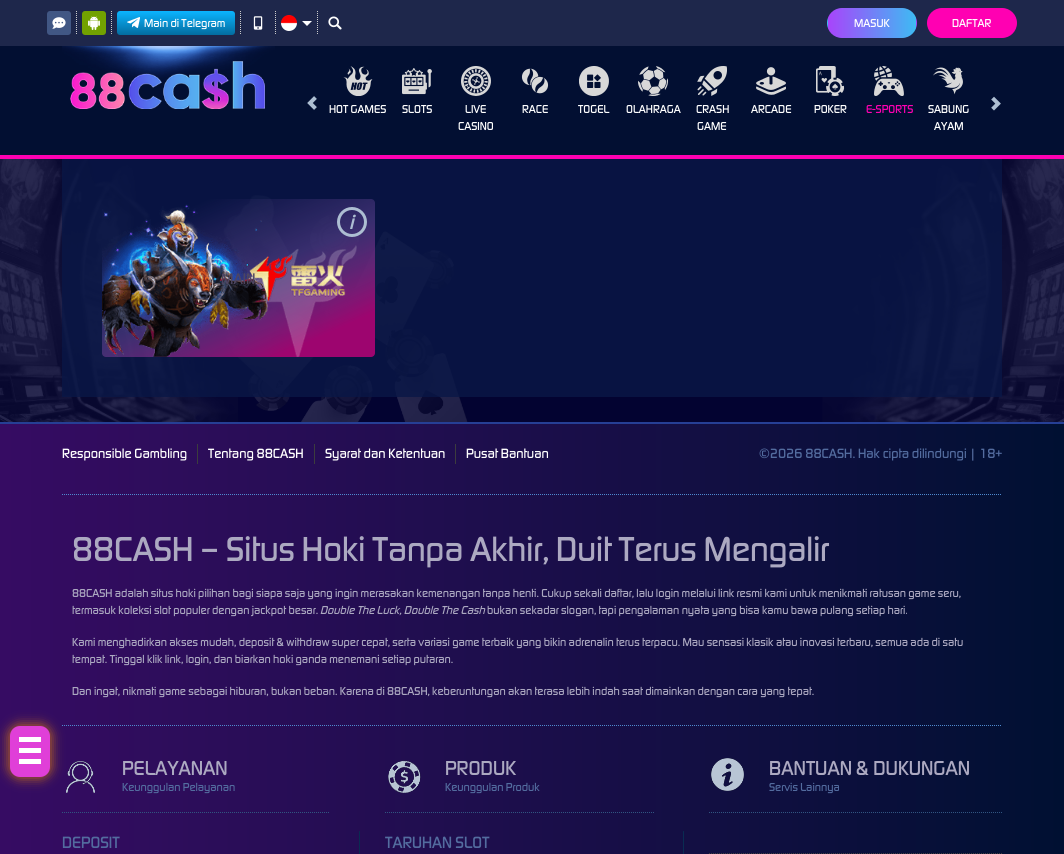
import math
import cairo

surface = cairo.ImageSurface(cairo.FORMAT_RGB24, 1064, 854)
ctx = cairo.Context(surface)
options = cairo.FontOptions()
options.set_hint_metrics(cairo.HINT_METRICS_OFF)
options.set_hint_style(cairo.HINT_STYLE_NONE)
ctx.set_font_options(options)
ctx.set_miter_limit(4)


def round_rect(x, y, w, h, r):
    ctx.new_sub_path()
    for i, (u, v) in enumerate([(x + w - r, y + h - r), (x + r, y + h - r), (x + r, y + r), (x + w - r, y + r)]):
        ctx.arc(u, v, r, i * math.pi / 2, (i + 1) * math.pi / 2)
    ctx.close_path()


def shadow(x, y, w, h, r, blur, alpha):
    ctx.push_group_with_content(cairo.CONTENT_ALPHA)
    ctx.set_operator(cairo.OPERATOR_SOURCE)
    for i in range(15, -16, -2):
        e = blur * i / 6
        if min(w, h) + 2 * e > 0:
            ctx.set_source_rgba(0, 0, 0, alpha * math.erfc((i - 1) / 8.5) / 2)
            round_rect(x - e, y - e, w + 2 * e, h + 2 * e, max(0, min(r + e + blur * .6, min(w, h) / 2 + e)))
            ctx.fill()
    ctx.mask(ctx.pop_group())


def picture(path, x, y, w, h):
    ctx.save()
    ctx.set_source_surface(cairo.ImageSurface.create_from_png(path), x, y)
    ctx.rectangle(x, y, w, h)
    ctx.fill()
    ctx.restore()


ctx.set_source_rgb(0.118, 0.153, 0.294)
ctx.paint()
ctx.set_source_rgb(0.255, 0.341, 0.518)
round_rect(47, 11, 24, 24, 3)
ctx.fill()
picture("img1.png", 52, 17, 14, 12)
ctx.new_path()
ctx.move_to(76.5, 11)
ctx.line_to(76.5, 35)
ctx.set_source_rgb(0.8, 0.8, 0.8)
ctx.set_line_width(1)
ctx.set_dash([1, 1])
ctx.stroke()
ctx.set_source_rgb(0.447, 0.635, 0)
round_rect(82, 11, 24, 24, 3)
ctx.fill()
picture("img2.png", 88, 16, 12, 14)
ctx.new_path()
ctx.move_to(111.5, 11)
ctx.line_to(111.5, 35)
ctx.set_source_rgb(0.8, 0.8, 0.8)
ctx.stroke()
gradient = cairo.LinearGradient(176, 11, 176, 35)
gradient.add_color_stop_rgba(0, 0.043, 0.706, 1, 1)
gradient.add_color_stop_rgba(1, 0.012, 0.424, 0.627, 1)
ctx.set_source(gradient)
round_rect(117, 11, 118, 24, 3)
ctx.fill()
picture("img3.png", 127, 17, 13, 11)
ctx.select_font_face("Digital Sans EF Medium")
ctx.set_font_size(12)
ctx.set_source_rgb(1, 1, 1)
ctx.move_to(144, 27)
ctx.show_text("Main di Telegram")
ctx.new_path()
ctx.move_to(240.5, 11)
ctx.line_to(240.5, 35)
ctx.set_source_rgb(0.8, 0.8, 0.8)
ctx.stroke()
picture("img4.png", 253, 16, 10, 14)
ctx.new_path()
ctx.move_to(275.5, 11)
ctx.line_to(275.5, 35)
ctx.stroke()
picture("img5.png", 281, 15, 16, 16)
ctx.set_source_rgb(1, 1, 1)
ctx.new_path()
ctx.move_to(302, 21)
ctx.line_to(312, 21)
ctx.line_to(307, 26)
ctx.close_path()
ctx.fill()
ctx.new_path()
ctx.move_to(317.5, 11)
ctx.line_to(317.5, 35)
ctx.set_source_rgb(0.8, 0.8, 0.8)
ctx.stroke()
picture("img6.png", 328, 16, 14, 14)
ctx.save()
round_rect(827, 8, 90, 30, 15)
ctx.clip()
gradient = cairo.LinearGradient(740, 23, 828, 23)
gradient.add_color_stop_rgba(0, 0.659, 0.267, 0.984, 1)
gradient.add_color_stop_rgba(1, 0.243, 0.733, 0.953, 1)
ctx.set_source(gradient)
ctx.rectangle(827, 18, 1, 10)
ctx.fill()
gradient = cairo.LinearGradient(828, 23, 916, 23)
gradient.add_color_stop_rgba(0, 0.659, 0.267, 0.984, 1)
gradient.add_color_stop_rgba(1, 0.243, 0.733, 0.953, 1)
ctx.set_source(gradient)
ctx.rectangle(828, 8, 88, 30)
ctx.fill()
gradient = cairo.LinearGradient(916, 23, 1004, 23)
gradient.add_color_stop_rgba(0, 0.659, 0.267, 0.984, 1)
gradient.add_color_stop_rgba(1, 0.243, 0.733, 0.953, 1)
ctx.set_source(gradient)
ctx.rectangle(916, 18, 1, 10)
ctx.fill()
ctx.restore()
ctx.set_source_rgb(1, 1, 1)
ctx.move_to(854, 27)
ctx.show_text("MASUK")
ctx.set_source_rgb(1, 0, 0.698)
round_rect(927, 8, 90, 30, 15)
ctx.fill()
ctx.set_source_rgb(1, 1, 1)
ctx.move_to(952, 27)
ctx.show_text("DAFTAR")
ctx.set_source_rgb(0.008, 0.059, 0.196)
ctx.rectangle(0, 46, 1064, 109)
ctx.fill()
ctx.set_source_rgb(1, 0, 0.698)
ctx.rectangle(0, 155, 1064, 4)
ctx.fill()
picture("img7.png", 62, 46, 213, 36)
picture("img8.png", 70, 61, 195, 48)
picture("img9.png", 307, 96, 10, 14)
picture("img10.png", 343, 66, 30, 30)
ctx.set_source_rgb(1, 1, 1)
ctx.move_to(329, 113)
ctx.show_text("HOT GAMES")
picture("img11.png", 402, 68, 30, 27)
ctx.move_to(402, 113)
ctx.show_text("SLOTS")
picture("img12.png", 461, 66, 30, 30)
ctx.move_to(465, 113)
ctx.show_text("LIVE")
ctx.move_to(458, 130)
ctx.show_text("CASINO")
picture("img13.png", 521, 68, 28, 26)
ctx.move_to(522, 113)
ctx.show_text("RACE")
picture("img14.png", 579, 66, 30, 30)
ctx.move_to(578, 113)
ctx.show_text("TOGEL")
picture("img15.png", 638, 66, 30, 30)
ctx.move_to(626, 113)
ctx.show_text("OLAHRAGA")
picture("img16.png", 697, 66, 30, 30)
ctx.move_to(696, 113)
ctx.show_text("CRASH")
ctx.move_to(697, 130)
ctx.show_text("GAME")
picture("img17.png", 756, 67, 30, 28)
ctx.move_to(751, 113)
ctx.show_text("ARCADE")
picture("img18.png", 816, 66, 29, 30)
ctx.move_to(814, 113)
ctx.show_text("POKER")
picture("img19.png", 874, 66, 30, 30)
ctx.set_source_rgb(1, 0, 0.698)
ctx.move_to(866, 113)
ctx.show_text("E-SPORTS")
picture("img20.png", 933, 67, 30, 28)
ctx.set_source_rgb(1, 1, 1)
ctx.move_to(928, 113)
ctx.show_text("SABUNG")
ctx.move_to(934, 130)
ctx.show_text("AYAM")
picture("img21.png", 991, 96, 10, 15)
ctx.set_source_rgb(0.012, 0.012, 0.192)
ctx.rectangle(0, 159, 1064, 263)
ctx.fill()
picture("img22.png", 0, 159, 1064, 263)
ctx.set_source_rgba(0.035, 0.09, 0.278, 0.8)
ctx.rectangle(62, 159, 940, 238)
ctx.fill()
gradient = cairo.LinearGradient(291, 395, 186, 161)
gradient.add_color_stop_rgba(0.16, 0.616, 0.02, 0.435, 1)
gradient.add_color_stop_rgba(0.49, 0.408, 0.282, 0.604, 0.5)
gradient.add_color_stop_rgba(0.83, 0.408, 0.282, 0.604, 0)
ctx.set_source(gradient)
round_rect(102, 199, 273, 158, 4)
ctx.fill()
picture("img23.png", 102, 204, 255, 153)
ctx.arc(352, 222, 13.5, 0, 2 * math.pi)
ctx.set_source_rgb(0.678, 0.745, 0.824)
ctx.set_line_width(3)
ctx.set_dash([])
ctx.stroke()
ctx.select_font_face("Digital Sans EF", cairo.FONT_SLANT_ITALIC, cairo.FONT_WEIGHT_BOLD)
ctx.set_font_size(20)
ctx.move_to(349, 229)
ctx.show_text("i")
ctx.select_font_face("Digital Sans EF Medium")
ctx.set_font_size(16)
ctx.set_source_rgb(0.302, 0.271, 0.38)
ctx.move_to(221, 284)
ctx.show_text("MAIN")
gradient = cairo.LinearGradient(0, 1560, 1064, 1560)
gradient.add_color_stop_rgba(0, 0.212, 0.047, 0.388, 1)
gradient.add_color_stop_rgba(1, 0, 0.063, 0.196, 1)
ctx.set_source(gradient)
ctx.rectangle(0, 424, 1064, 430)
ctx.fill()
ctx.new_path()
ctx.move_to(62, 725.5)
ctx.line_to(1002, 725.5)
ctx.set_source_rgb(0.31, 0.541, 0.812)
ctx.set_line_width(1)
ctx.set_dash([1, 1])
ctx.stroke()
picture("img24.png", 66, 761, 29, 32)
ctx.set_source_rgb(1, 0.569, 0)
shadow(9, 725, 42, 53, 11, 6, 0.7)
ctx.set_source_rgb(0.878, 0.247, 0.847)
round_rect(10, 726, 40, 51, 10)
ctx.fill()
ctx.set_source_rgb(1, 1, 1)
ctx.rectangle(19, 737, 22, 5)
ctx.fill()
ctx.rectangle(19, 748, 22, 5)
ctx.fill()
ctx.rectangle(19, 759, 22, 5)
ctx.fill()
ctx.set_source_rgb(0.149, 0.247, 0.584)
ctx.rectangle(0, 422, 1064, 2)
ctx.fill()
ctx.set_font_size(14)
ctx.set_source_rgb(1, 1, 1)
ctx.move_to(62, 458)
ctx.show_text("Responsible Gambling")
ctx.set_source_rgb(0.235, 0.235, 0.243)
ctx.rectangle(197, 444, 1, 20)
ctx.fill()
ctx.set_source_rgb(1, 1, 1)
ctx.move_to(208, 458)
ctx.show_text("Tentang 88CASH")
ctx.set_source_rgb(0.235, 0.235, 0.243)
ctx.rectangle(314, 444, 1, 20)
ctx.fill()
ctx.set_source_rgb(1, 1, 1)
ctx.move_to(325, 458)
ctx.show_text("Syarat dan Ketentuan")
ctx.set_source_rgb(0.235, 0.235, 0.243)
ctx.rectangle(455, 444, 1, 20)
ctx.fill()
ctx.set_source_rgb(1, 1, 1)
ctx.move_to(466, 458)
ctx.show_text("Pusat Bantuan")
ctx.set_source_rgb(0.325, 0.424, 0.624)
ctx.move_to(759, 458)
ctx.show_text("©2026 88CASH. Hak cipta dilindungi | 18+")
ctx.new_path()
ctx.move_to(62, 494.5)
ctx.line_to(1002, 494.5)
ctx.set_source_rgb(0.31, 0.541, 0.812)
ctx.stroke()
ctx.set_font_size(36)
ctx.set_source_rgb(0.675, 0.663, 0.757)
ctx.move_to(72, 561)
ctx.show_text("88CASH – Situs Hoki Tanpa Akhir, Duit Terus Mengalir")
ctx.set_font_size(12)
ctx.move_to(72, 597)
ctx.show_text("88CASH adalah situs hoki pilihan bagi siapa saja yang ingin merasakan kemenangan tanpa henti. Cukup sekali daftar, lalu login melalui link resmi kami untuk menikmati ratusan game seru,")
ctx.move_to(72, 614)
ctx.show_text("termasuk koleksi slot populer dengan jackpot besar.")
ctx.select_font_face("Digital Sans EF Medium", cairo.FONT_SLANT_ITALIC)
ctx.move_to(320, 614)
ctx.show_text("Double The Luck, Double The Cash")
ctx.select_font_face("Digital Sans EF Medium")
ctx.move_to(487, 614)
ctx.show_text("bukan sekadar slogan, tapi pengalaman nyata yang bisa kamu bawa pulang setiap hari.")
ctx.move_to(72, 646)
ctx.show_text("Kami menghadirkan akses mudah, deposit & withdraw super cepat, serta variasi game terbaik yang bikin adrenalin terus terpacu. Mau sensasi klasik atau inovasi terbaru, semua ada di satu")
ctx.move_to(72, 663)
ctx.show_text("tempat. Tinggal klik link, login, dan biarkan hoki ganda menemani setiap putaran.")
ctx.move_to(72, 695)
ctx.show_text("Dan ingat, nikmati game sebagai hiburan, bukan beban. Karena di 88CASH, keberuntungan akan terasa lebih indah saat dimainkan dengan cara yang tepat.")
ctx.new_path()
ctx.move_to(62, 812.5)
ctx.line_to(330, 812.5)
ctx.set_source_rgb(0.192, 0.333, 0.506)
ctx.stroke()
ctx.set_font_size(21)
ctx.set_source_rgb(0.675, 0.663, 0.757)
ctx.move_to(122, 775)
ctx.show_text("PELAYANAN")
ctx.set_font_size(12)
ctx.set_source_rgb(0.325, 0.424, 0.624)
ctx.move_to(122, 791)
ctx.show_text("Keunggulan Pelayanan")
ctx.set_font_size(17)
ctx.move_to(62, 848)
ctx.show_text("DEPOSIT")
ctx.set_source_rgb(0.039, 0.173, 0.322)
round_rect(359, 831, 1, 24, 0.5)
ctx.fill()
ctx.new_path()
ctx.move_to(385, 812.5)
ctx.line_to(654, 812.5)
ctx.set_source_rgb(0.192, 0.333, 0.506)
ctx.stroke()
picture("img25.png", 388, 760, 33, 34)
ctx.set_font_size(21)
ctx.set_source_rgb(0.675, 0.663, 0.757)
ctx.move_to(445, 775)
ctx.show_text("PRODUK")
ctx.set_font_size(12)
ctx.set_source_rgb(0.325, 0.424, 0.624)
ctx.move_to(445, 791)
ctx.show_text("Keunggulan Produk")
ctx.set_font_size(17)
ctx.move_to(385, 848)
ctx.show_text("TARUHAN SLOT")
ctx.set_source_rgb(0.039, 0.173, 0.322)
round_rect(683, 831, 1, 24, 0.5)
ctx.fill()
ctx.new_path()
ctx.move_to(709, 812.5)
ctx.line_to(1002, 812.5)
ctx.set_source_rgb(0.192, 0.333, 0.506)
ctx.stroke()
picture("img26.png", 711, 758, 33, 33)
ctx.set_font_size(21)
ctx.set_source_rgb(0.675, 0.663, 0.757)
ctx.move_to(769, 775)
ctx.show_text("BANTUAN & DUKUNGAN")
ctx.set_font_size(12)
ctx.set_source_rgb(0.325, 0.424, 0.624)
ctx.move_to(769, 791)
ctx.show_text("Servis Lainnya")
ctx.new_path()
ctx.move_to(709, 853.5)
ctx.line_to(1002, 853.5)
ctx.set_source_rgb(0.247, 0.239, 0.255)
ctx.stroke()
surface.write_to_png("page.png")
